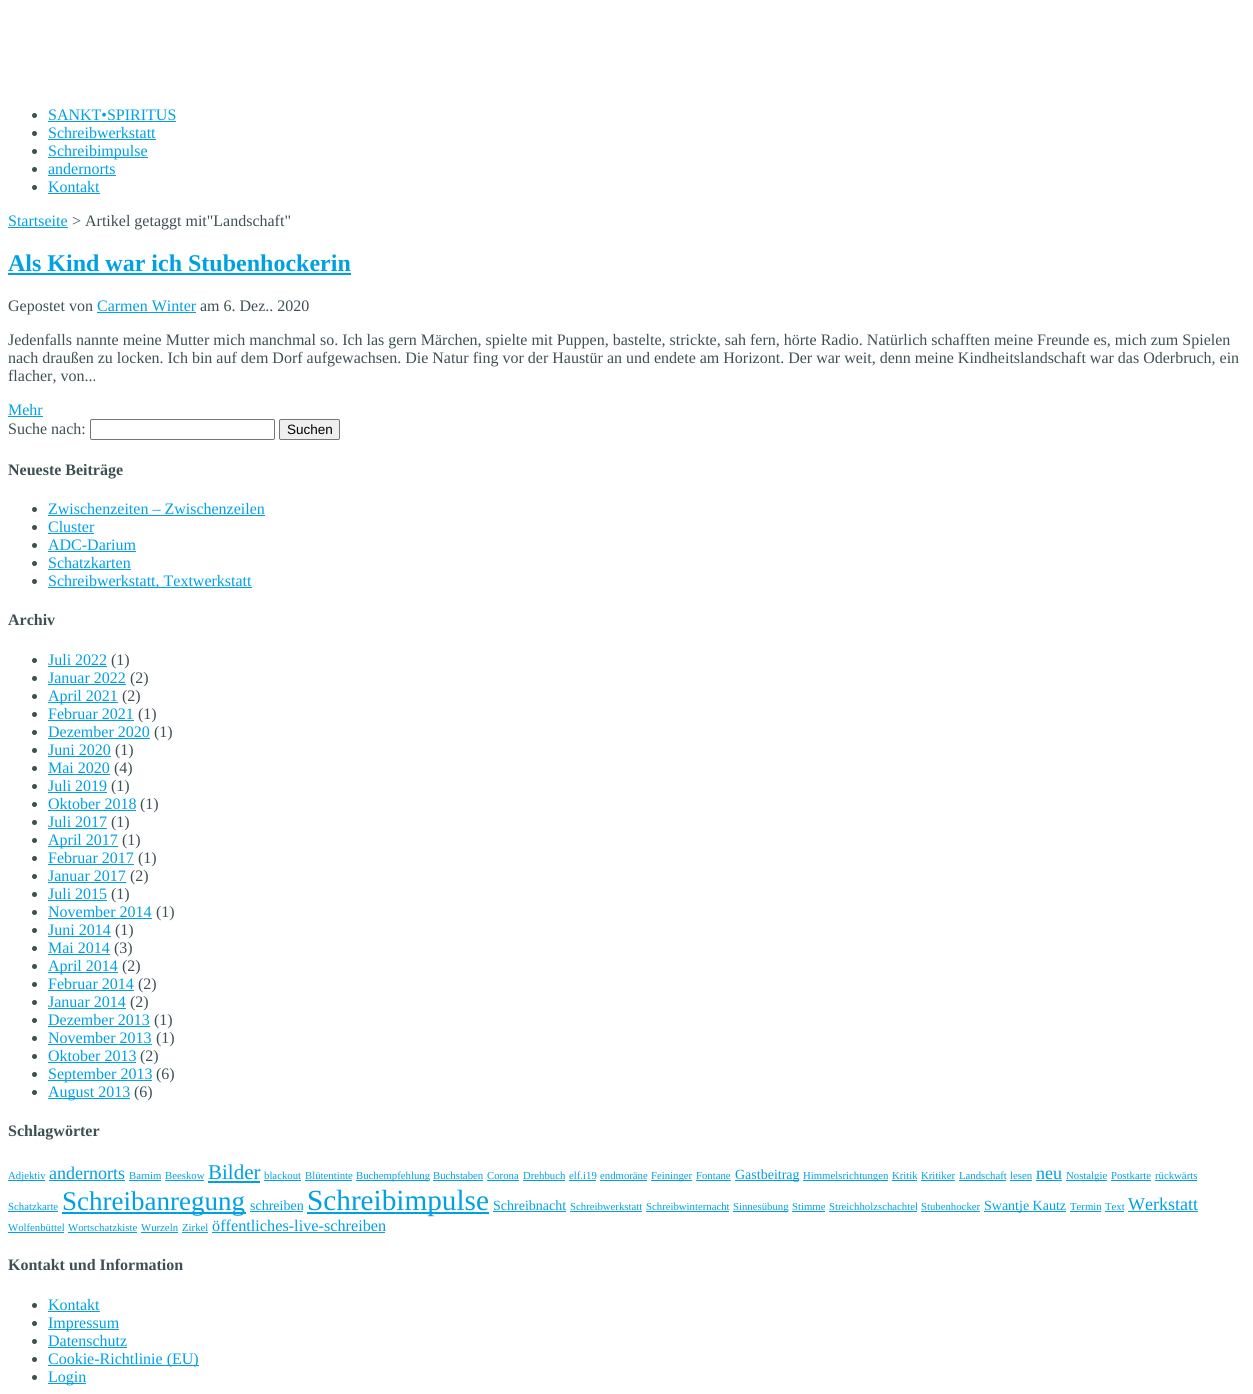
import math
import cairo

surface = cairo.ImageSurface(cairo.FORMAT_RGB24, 1253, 1394)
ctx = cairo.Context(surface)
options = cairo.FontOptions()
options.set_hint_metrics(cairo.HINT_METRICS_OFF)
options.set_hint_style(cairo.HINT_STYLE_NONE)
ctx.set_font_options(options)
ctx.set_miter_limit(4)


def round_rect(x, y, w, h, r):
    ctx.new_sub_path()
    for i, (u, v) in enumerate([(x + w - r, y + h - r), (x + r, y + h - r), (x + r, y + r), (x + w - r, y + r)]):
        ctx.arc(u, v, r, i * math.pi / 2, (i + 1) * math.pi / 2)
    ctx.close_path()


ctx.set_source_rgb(1, 1, 1)
ctx.paint()
ctx.set_source_rgb(0.239, 0.314, 0.329)
ctx.arc(34.5, 115.5, 2.5, 0, 2 * math.pi)
ctx.fill()
ctx.select_font_face("Liberation Serif")
ctx.set_font_size(16)
ctx.set_source_rgb(0, 0.627, 0.898)
ctx.move_to(48, 120)
ctx.show_text("SANKT•SPIRITUS")
ctx.rectangle(48, 121, 128, 1)
ctx.fill()
ctx.set_source_rgb(0.239, 0.314, 0.329)
ctx.arc(34.5, 133.5, 2.5, 0, 2 * math.pi)
ctx.fill()
ctx.set_source_rgb(0, 0.627, 0.898)
ctx.move_to(48, 138)
ctx.show_text("Schreibwerkstatt")
ctx.rectangle(48, 139, 108, 1)
ctx.fill()
ctx.set_source_rgb(0.239, 0.314, 0.329)
ctx.arc(34.5, 151.5, 2.5, 0, 2 * math.pi)
ctx.fill()
ctx.set_source_rgb(0, 0.627, 0.898)
ctx.rectangle(48, 157, 100, 1)
ctx.fill()
ctx.move_to(48, 156)
ctx.show_text("Schreibimpulse")
ctx.set_source_rgb(0.239, 0.314, 0.329)
ctx.new_path()
ctx.arc(34.5, 169.5, 2.5, 0, 2 * math.pi)
ctx.fill()
ctx.set_source_rgb(0, 0.627, 0.898)
ctx.move_to(48, 174)
ctx.show_text("andernorts")
ctx.rectangle(48, 175, 68, 1)
ctx.fill()
ctx.set_source_rgb(0.239, 0.314, 0.329)
ctx.arc(34.5, 187.5, 2.5, 0, 2 * math.pi)
ctx.fill()
ctx.set_source_rgb(0, 0.627, 0.898)
ctx.move_to(48, 192)
ctx.show_text("Kontakt")
ctx.rectangle(48, 193, 52, 1)
ctx.fill()
ctx.move_to(8, 226)
ctx.show_text("Startseite")
ctx.rectangle(8, 227, 60, 1)
ctx.fill()
ctx.set_source_rgb(0.239, 0.314, 0.329)
ctx.move_to(72, 226)
ctx.show_text("> Artikel getaggt mit\"Landschaft\"")
ctx.select_font_face("Liberation Serif", cairo.FONT_SLANT_NORMAL, cairo.FONT_WEIGHT_BOLD)
ctx.set_font_size(24)
ctx.set_source_rgb(0, 0.627, 0.898)
ctx.move_to(8, 271)
ctx.show_text("Als Kind war ich Stubenhockerin")
ctx.rectangle(8, 273, 343, 2)
ctx.fill()
ctx.select_font_face("Liberation Serif")
ctx.set_font_size(16)
ctx.set_source_rgb(0.239, 0.314, 0.329)
ctx.move_to(8, 311)
ctx.show_text("Gepostet von")
ctx.set_source_rgb(0, 0.627, 0.898)
ctx.move_to(97, 311)
ctx.show_text("Carmen Winter")
ctx.rectangle(97, 312, 99, 1)
ctx.fill()
ctx.set_source_rgb(0.239, 0.314, 0.329)
ctx.move_to(200, 311)
ctx.show_text("am 6. Dez.. 2020")
ctx.move_to(8, 345)
ctx.show_text("Jedenfalls nannte meine Mutter mich manchmal so. Ich las gern Märchen, spielte mit Puppen, bastelte, strickte, sah fern, hörte Radio. Natürlich schafften meine Freunde es, mich zum Spielen")
ctx.move_to(8, 363)
ctx.show_text("nach draußen zu locken. Ich bin auf dem Dorf aufgewachsen. Die Natur fing vor der Haustür an und endete am Horizont. Der war weit, denn meine Kindheitslandschaft war das Oderbruch, ein")
ctx.move_to(8, 381)
ctx.show_text("flacher, von...")
ctx.set_source_rgb(0, 0.627, 0.898)
ctx.move_to(8, 415)
ctx.show_text("Mehr")
ctx.rectangle(8, 416, 35, 1)
ctx.fill()
ctx.set_source_rgb(0.239, 0.314, 0.329)
ctx.move_to(8, 434)
ctx.show_text("Suche nach:")
round_rect(90.5, 419.5, 184, 20, 1.5)
ctx.set_source_rgb(0.463, 0.463, 0.463)
ctx.set_line_width(1)
ctx.stroke()
ctx.set_source_rgb(0.937, 0.937, 0.937)
round_rect(279.5, 419.5, 60, 20, 1.5)
ctx.fill_preserve()
ctx.set_source_rgb(0.463, 0.463, 0.463)
ctx.stroke()
ctx.select_font_face("Liberation Sans")
ctx.set_font_size(13.5)
ctx.set_source_rgb(0, 0, 0)
ctx.move_to(287, 434)
ctx.show_text("Suchen")
ctx.select_font_face("Liberation Serif", cairo.FONT_SLANT_NORMAL, cairo.FONT_WEIGHT_BOLD)
ctx.set_font_size(16)
ctx.set_source_rgb(0.239, 0.314, 0.329)
ctx.move_to(8, 475)
ctx.show_text("Neueste Beiträge")
ctx.new_path()
ctx.arc(34.5, 509.5, 2.5, 0, 2 * math.pi)
ctx.fill()
ctx.select_font_face("Liberation Serif")
ctx.set_source_rgb(0, 0.627, 0.898)
ctx.move_to(48, 514)
ctx.show_text("Zwischenzeiten – Zwischenzeilen")
ctx.rectangle(48, 515, 217, 1)
ctx.fill()
ctx.set_source_rgb(0.239, 0.314, 0.329)
ctx.arc(34.5, 527.5, 2.5, 0, 2 * math.pi)
ctx.fill()
ctx.set_source_rgb(0, 0.627, 0.898)
ctx.move_to(48, 532)
ctx.show_text("Cluster")
ctx.rectangle(48, 533, 46, 1)
ctx.fill()
ctx.set_source_rgb(0.239, 0.314, 0.329)
ctx.arc(34.5, 545.5, 2.5, 0, 2 * math.pi)
ctx.fill()
ctx.set_source_rgb(0, 0.627, 0.898)
ctx.move_to(48, 550)
ctx.show_text("ADC-Darium")
ctx.rectangle(48, 551, 88, 1)
ctx.fill()
ctx.set_source_rgb(0.239, 0.314, 0.329)
ctx.arc(34.5, 563.5, 2.5, 0, 2 * math.pi)
ctx.fill()
ctx.set_source_rgb(0, 0.627, 0.898)
ctx.move_to(48, 568)
ctx.show_text("Schatzkarten")
ctx.rectangle(48, 569, 83, 1)
ctx.fill()
ctx.set_source_rgb(0.239, 0.314, 0.329)
ctx.arc(34.5, 581.5, 2.5, 0, 2 * math.pi)
ctx.fill()
ctx.set_source_rgb(0, 0.627, 0.898)
ctx.rectangle(48, 587, 204, 1)
ctx.fill()
ctx.move_to(48, 586)
ctx.show_text("Schreibwerkstatt, Textwerkstatt")
ctx.select_font_face("Liberation Serif", cairo.FONT_SLANT_NORMAL, cairo.FONT_WEIGHT_BOLD)
ctx.set_source_rgb(0.239, 0.314, 0.329)
ctx.move_to(8, 625)
ctx.show_text("Archiv")
ctx.new_path()
ctx.arc(34.5, 660.5, 2.5, 0, 2 * math.pi)
ctx.fill()
ctx.select_font_face("Liberation Serif")
ctx.set_source_rgb(0, 0.627, 0.898)
ctx.move_to(48, 665)
ctx.show_text("Juli 2022")
ctx.rectangle(48, 666, 59, 1)
ctx.fill()
ctx.set_source_rgb(0.239, 0.314, 0.329)
ctx.move_to(111, 665)
ctx.show_text("(1)")
ctx.new_path()
ctx.arc(34.5, 678.5, 2.5, 0, 2 * math.pi)
ctx.fill()
ctx.set_source_rgb(0, 0.627, 0.898)
ctx.move_to(48, 683)
ctx.show_text("Januar 2022")
ctx.rectangle(48, 684, 78, 1)
ctx.fill()
ctx.set_source_rgb(0.239, 0.314, 0.329)
ctx.move_to(130, 683)
ctx.show_text("(2)")
ctx.new_path()
ctx.arc(34.5, 696.5, 2.5, 0, 2 * math.pi)
ctx.fill()
ctx.set_source_rgb(0, 0.627, 0.898)
ctx.rectangle(48, 702, 70, 1)
ctx.fill()
ctx.move_to(48, 701)
ctx.show_text("April 2021")
ctx.set_source_rgb(0.239, 0.314, 0.329)
ctx.move_to(122, 701)
ctx.show_text("(2)")
ctx.new_path()
ctx.arc(34.5, 714.5, 2.5, 0, 2 * math.pi)
ctx.fill()
ctx.set_source_rgb(0, 0.627, 0.898)
ctx.move_to(48, 719)
ctx.show_text("Februar 2021")
ctx.rectangle(48, 720, 86, 1)
ctx.fill()
ctx.set_source_rgb(0.239, 0.314, 0.329)
ctx.move_to(138, 719)
ctx.show_text("(1)")
ctx.new_path()
ctx.arc(34.5, 732.5, 2.5, 0, 2 * math.pi)
ctx.fill()
ctx.set_source_rgb(0, 0.627, 0.898)
ctx.move_to(48, 737)
ctx.show_text("Dezember 2020")
ctx.rectangle(48, 738, 102, 1)
ctx.fill()
ctx.set_source_rgb(0.239, 0.314, 0.329)
ctx.move_to(154, 737)
ctx.show_text("(1)")
ctx.new_path()
ctx.arc(34.5, 750.5, 2.5, 0, 2 * math.pi)
ctx.fill()
ctx.set_source_rgb(0, 0.627, 0.898)
ctx.move_to(48, 755)
ctx.show_text("Juni 2020")
ctx.rectangle(48, 756, 63, 1)
ctx.fill()
ctx.set_source_rgb(0.239, 0.314, 0.329)
ctx.move_to(115, 755)
ctx.show_text("(1)")
ctx.new_path()
ctx.arc(34.5, 768.5, 2.5, 0, 2 * math.pi)
ctx.fill()
ctx.set_source_rgb(0, 0.627, 0.898)
ctx.move_to(48, 773)
ctx.show_text("Mai 2020")
ctx.rectangle(48, 774, 62, 1)
ctx.fill()
ctx.set_source_rgb(0.239, 0.314, 0.329)
ctx.move_to(114, 773)
ctx.show_text("(4)")
ctx.new_path()
ctx.arc(34.5, 786.5, 2.5, 0, 2 * math.pi)
ctx.fill()
ctx.set_source_rgb(0, 0.627, 0.898)
ctx.move_to(48, 791)
ctx.show_text("Juli 2019")
ctx.rectangle(48, 792, 59, 1)
ctx.fill()
ctx.set_source_rgb(0.239, 0.314, 0.329)
ctx.move_to(111, 791)
ctx.show_text("(1)")
ctx.new_path()
ctx.arc(34.5, 804.5, 2.5, 0, 2 * math.pi)
ctx.fill()
ctx.set_source_rgb(0, 0.627, 0.898)
ctx.move_to(48, 809)
ctx.show_text("Oktober 2018")
ctx.rectangle(48, 810, 88, 1)
ctx.fill()
ctx.set_source_rgb(0.239, 0.314, 0.329)
ctx.move_to(140, 809)
ctx.show_text("(1)")
ctx.new_path()
ctx.arc(34.5, 822.5, 2.5, 0, 2 * math.pi)
ctx.fill()
ctx.set_source_rgb(0, 0.627, 0.898)
ctx.move_to(48, 827)
ctx.show_text("Juli 2017")
ctx.rectangle(48, 828, 59, 1)
ctx.fill()
ctx.set_source_rgb(0.239, 0.314, 0.329)
ctx.move_to(111, 827)
ctx.show_text("(1)")
ctx.new_path()
ctx.arc(34.5, 840.5, 2.5, 0, 2 * math.pi)
ctx.fill()
ctx.set_source_rgb(0, 0.627, 0.898)
ctx.rectangle(48, 846, 70, 1)
ctx.fill()
ctx.move_to(48, 845)
ctx.show_text("April 2017")
ctx.set_source_rgb(0.239, 0.314, 0.329)
ctx.move_to(122, 845)
ctx.show_text("(1)")
ctx.new_path()
ctx.arc(34.5, 858.5, 2.5, 0, 2 * math.pi)
ctx.fill()
ctx.set_source_rgb(0, 0.627, 0.898)
ctx.move_to(48, 863)
ctx.show_text("Februar 2017")
ctx.rectangle(48, 864, 86, 1)
ctx.fill()
ctx.set_source_rgb(0.239, 0.314, 0.329)
ctx.move_to(138, 863)
ctx.show_text("(1)")
ctx.new_path()
ctx.arc(34.5, 876.5, 2.5, 0, 2 * math.pi)
ctx.fill()
ctx.set_source_rgb(0, 0.627, 0.898)
ctx.move_to(48, 881)
ctx.show_text("Januar 2017")
ctx.rectangle(48, 882, 78, 1)
ctx.fill()
ctx.set_source_rgb(0.239, 0.314, 0.329)
ctx.move_to(130, 881)
ctx.show_text("(2)")
ctx.new_path()
ctx.arc(34.5, 894.5, 2.5, 0, 2 * math.pi)
ctx.fill()
ctx.set_source_rgb(0, 0.627, 0.898)
ctx.move_to(48, 899)
ctx.show_text("Juli 2015")
ctx.rectangle(48, 900, 59, 1)
ctx.fill()
ctx.set_source_rgb(0.239, 0.314, 0.329)
ctx.move_to(111, 899)
ctx.show_text("(1)")
ctx.new_path()
ctx.arc(34.5, 912.5, 2.5, 0, 2 * math.pi)
ctx.fill()
ctx.set_source_rgb(0, 0.627, 0.898)
ctx.move_to(48, 917)
ctx.show_text("November 2014")
ctx.rectangle(48, 918, 104, 1)
ctx.fill()
ctx.set_source_rgb(0.239, 0.314, 0.329)
ctx.move_to(156, 917)
ctx.show_text("(1)")
ctx.new_path()
ctx.arc(34.5, 930.5, 2.5, 0, 2 * math.pi)
ctx.fill()
ctx.set_source_rgb(0, 0.627, 0.898)
ctx.move_to(48, 935)
ctx.show_text("Juni 2014")
ctx.rectangle(48, 936, 63, 1)
ctx.fill()
ctx.set_source_rgb(0.239, 0.314, 0.329)
ctx.move_to(115, 935)
ctx.show_text("(1)")
ctx.new_path()
ctx.arc(34.5, 948.5, 2.5, 0, 2 * math.pi)
ctx.fill()
ctx.set_source_rgb(0, 0.627, 0.898)
ctx.move_to(48, 953)
ctx.show_text("Mai 2014")
ctx.rectangle(48, 954, 62, 1)
ctx.fill()
ctx.set_source_rgb(0.239, 0.314, 0.329)
ctx.move_to(114, 953)
ctx.show_text("(3)")
ctx.new_path()
ctx.arc(34.5, 966.5, 2.5, 0, 2 * math.pi)
ctx.fill()
ctx.set_source_rgb(0, 0.627, 0.898)
ctx.rectangle(48, 972, 70, 1)
ctx.fill()
ctx.move_to(48, 971)
ctx.show_text("April 2014")
ctx.set_source_rgb(0.239, 0.314, 0.329)
ctx.move_to(122, 971)
ctx.show_text("(2)")
ctx.new_path()
ctx.arc(34.5, 984.5, 2.5, 0, 2 * math.pi)
ctx.fill()
ctx.set_source_rgb(0, 0.627, 0.898)
ctx.move_to(48, 989)
ctx.show_text("Februar 2014")
ctx.rectangle(48, 990, 86, 1)
ctx.fill()
ctx.set_source_rgb(0.239, 0.314, 0.329)
ctx.move_to(138, 989)
ctx.show_text("(2)")
ctx.new_path()
ctx.arc(34.5, 1002.5, 2.5, 0, 2 * math.pi)
ctx.fill()
ctx.set_source_rgb(0, 0.627, 0.898)
ctx.move_to(48, 1007)
ctx.show_text("Januar 2014")
ctx.rectangle(48, 1008, 78, 1)
ctx.fill()
ctx.set_source_rgb(0.239, 0.314, 0.329)
ctx.move_to(130, 1007)
ctx.show_text("(2)")
ctx.new_path()
ctx.arc(34.5, 1020.5, 2.5, 0, 2 * math.pi)
ctx.fill()
ctx.set_source_rgb(0, 0.627, 0.898)
ctx.move_to(48, 1025)
ctx.show_text("Dezember 2013")
ctx.rectangle(48, 1026, 102, 1)
ctx.fill()
ctx.set_source_rgb(0.239, 0.314, 0.329)
ctx.move_to(154, 1025)
ctx.show_text("(1)")
ctx.new_path()
ctx.arc(34.5, 1038.5, 2.5, 0, 2 * math.pi)
ctx.fill()
ctx.set_source_rgb(0, 0.627, 0.898)
ctx.move_to(48, 1043)
ctx.show_text("November 2013")
ctx.rectangle(48, 1044, 104, 1)
ctx.fill()
ctx.set_source_rgb(0.239, 0.314, 0.329)
ctx.move_to(156, 1043)
ctx.show_text("(1)")
ctx.new_path()
ctx.arc(34.5, 1056.5, 2.5, 0, 2 * math.pi)
ctx.fill()
ctx.set_source_rgb(0, 0.627, 0.898)
ctx.move_to(48, 1061)
ctx.show_text("Oktober 2013")
ctx.rectangle(48, 1062, 88, 1)
ctx.fill()
ctx.set_source_rgb(0.239, 0.314, 0.329)
ctx.move_to(140, 1061)
ctx.show_text("(2)")
ctx.new_path()
ctx.arc(34.5, 1074.5, 2.5, 0, 2 * math.pi)
ctx.fill()
ctx.set_source_rgb(0, 0.627, 0.898)
ctx.rectangle(48, 1080, 104, 1)
ctx.fill()
ctx.move_to(48, 1079)
ctx.show_text("September 2013")
ctx.set_source_rgb(0.239, 0.314, 0.329)
ctx.move_to(156, 1079)
ctx.show_text("(6)")
ctx.new_path()
ctx.arc(34.5, 1092.5, 2.5, 0, 2 * math.pi)
ctx.fill()
ctx.set_source_rgb(0, 0.627, 0.898)
ctx.rectangle(48, 1098, 82, 1)
ctx.fill()
ctx.move_to(48, 1097)
ctx.show_text("August 2013")
ctx.set_source_rgb(0.239, 0.314, 0.329)
ctx.move_to(134, 1097)
ctx.show_text("(6)")
ctx.select_font_face("Liberation Serif", cairo.FONT_SLANT_NORMAL, cairo.FONT_WEIGHT_BOLD)
ctx.move_to(8, 1136)
ctx.show_text("Schlagwörter")
ctx.set_source_rgb(0, 0.627, 0.898)
ctx.rectangle(8, 1180, 37, 1)
ctx.fill()
ctx.select_font_face("Liberation Serif")
ctx.set_font_size(10.75)
ctx.move_to(8, 1179)
ctx.show_text("Adjektiv")
ctx.set_font_size(18)
ctx.move_to(49, 1179)
ctx.show_text("andernorts")
ctx.rectangle(49, 1180, 76, 1)
ctx.fill()
ctx.set_font_size(10.75)
ctx.move_to(129, 1179)
ctx.show_text("Barnim")
ctx.rectangle(129, 1180, 32, 1)
ctx.fill()
ctx.move_to(165, 1179)
ctx.show_text("Beeskow")
ctx.rectangle(165, 1180, 39, 1)
ctx.fill()
ctx.set_font_size(21)
ctx.move_to(208, 1179)
ctx.show_text("Bilder")
ctx.rectangle(208, 1181, 52, 2)
ctx.fill()
ctx.set_font_size(10.75)
ctx.move_to(264, 1179)
ctx.show_text("blackout")
ctx.rectangle(264, 1180, 37, 1)
ctx.fill()
ctx.move_to(305, 1179)
ctx.show_text("Blütentinte")
ctx.rectangle(305, 1180, 47, 1)
ctx.fill()
ctx.rectangle(356, 1180, 73, 1)
ctx.fill()
ctx.move_to(356, 1179)
ctx.show_text("Buchempfehlung")
ctx.move_to(433, 1179)
ctx.show_text("Buchstaben")
ctx.rectangle(433, 1180, 50, 1)
ctx.fill()
ctx.move_to(487, 1179)
ctx.show_text("Corona")
ctx.rectangle(487, 1180, 32, 1)
ctx.fill()
ctx.move_to(523, 1179)
ctx.show_text("Drehbuch")
ctx.rectangle(523, 1180, 42, 1)
ctx.fill()
ctx.move_to(569, 1179)
ctx.show_text("elf.i19")
ctx.rectangle(569, 1180, 27, 1)
ctx.fill()
ctx.move_to(600, 1179)
ctx.show_text("endmoräne")
ctx.rectangle(600, 1180, 47, 1)
ctx.fill()
ctx.rectangle(651, 1180, 41, 1)
ctx.fill()
ctx.move_to(651, 1179)
ctx.show_text("Feininger")
ctx.move_to(696, 1179)
ctx.show_text("Fontane")
ctx.rectangle(696, 1180, 35, 1)
ctx.fill()
ctx.rectangle(735, 1180, 64, 1)
ctx.fill()
ctx.set_font_size(14)
ctx.move_to(735, 1179)
ctx.show_text("Gastbeitrag")
ctx.rectangle(803, 1180, 85, 1)
ctx.fill()
ctx.set_font_size(10.75)
ctx.move_to(803, 1179)
ctx.show_text("Himmelsrichtungen")
ctx.move_to(892, 1179)
ctx.show_text("Kritik")
ctx.rectangle(892, 1180, 25, 1)
ctx.fill()
ctx.move_to(921, 1179)
ctx.show_text("Kritiker")
ctx.rectangle(921, 1180, 34, 1)
ctx.fill()
ctx.move_to(959, 1179)
ctx.show_text("Landschaft")
ctx.rectangle(959, 1180, 47, 1)
ctx.fill()
ctx.move_to(1010, 1179)
ctx.show_text("lesen")
ctx.rectangle(1010, 1180, 22, 1)
ctx.fill()
ctx.set_font_size(18)
ctx.move_to(1036, 1179)
ctx.show_text("neu")
ctx.rectangle(1036, 1180, 26, 1)
ctx.fill()
ctx.rectangle(1066, 1180, 41, 1)
ctx.fill()
ctx.set_font_size(10.75)
ctx.move_to(1066, 1179)
ctx.show_text("Nostalgie")
ctx.move_to(1111, 1179)
ctx.show_text("Postkarte")
ctx.rectangle(1111, 1180, 40, 1)
ctx.fill()
ctx.move_to(1155, 1179)
ctx.show_text("rückwärts")
ctx.rectangle(1155, 1180, 42, 1)
ctx.fill()
ctx.move_to(8, 1210)
ctx.show_text("Schatzkarte")
ctx.rectangle(8, 1211, 50, 1)
ctx.fill()
ctx.rectangle(62, 1212, 184, 2)
ctx.fill()
ctx.set_font_size(27)
ctx.move_to(62, 1210)
ctx.show_text("Schreibanregung")
ctx.set_font_size(14)
ctx.move_to(250, 1210)
ctx.show_text("schreiben")
ctx.rectangle(250, 1211, 53, 1)
ctx.fill()
ctx.rectangle(307, 1212, 182, 2)
ctx.fill()
ctx.set_font_size(29.25)
ctx.move_to(307, 1210)
ctx.show_text("Schreibimpulse")
ctx.set_font_size(14)
ctx.move_to(493, 1210)
ctx.show_text("Schreibnacht")
ctx.rectangle(493, 1211, 73, 1)
ctx.fill()
ctx.set_font_size(10.75)
ctx.move_to(570, 1210)
ctx.show_text("Schreibwerkstatt")
ctx.rectangle(570, 1211, 72, 1)
ctx.fill()
ctx.move_to(646, 1210)
ctx.show_text("Schreibwinternacht")
ctx.rectangle(646, 1211, 83, 1)
ctx.fill()
ctx.rectangle(733, 1211, 55, 1)
ctx.fill()
ctx.move_to(733, 1210)
ctx.show_text("Sinnesübung")
ctx.move_to(792, 1210)
ctx.show_text("Stimme")
ctx.rectangle(792, 1211, 33, 1)
ctx.fill()
ctx.move_to(829, 1210)
ctx.show_text("Streichholzschachtel")
ctx.rectangle(829, 1211, 88, 1)
ctx.fill()
ctx.move_to(921, 1210)
ctx.show_text("Stubenhocker")
ctx.rectangle(921, 1211, 59, 1)
ctx.fill()
ctx.rectangle(984, 1211, 82, 1)
ctx.fill()
ctx.set_font_size(14)
ctx.move_to(984, 1210)
ctx.show_text("Swantje Kautz")
ctx.set_font_size(10.75)
ctx.move_to(1070, 1210)
ctx.show_text("Termin")
ctx.rectangle(1070, 1211, 31, 1)
ctx.fill()
ctx.move_to(1105, 1210)
ctx.show_text("Text")
ctx.rectangle(1105, 1211, 19, 1)
ctx.fill()
ctx.set_font_size(18)
ctx.move_to(1128, 1210)
ctx.show_text("Werkstatt")
ctx.rectangle(1128, 1211, 70, 1)
ctx.fill()
ctx.set_font_size(10.75)
ctx.move_to(8, 1231)
ctx.show_text("Wolfenbüttel")
ctx.rectangle(8, 1232, 56, 1)
ctx.fill()
ctx.move_to(68, 1231)
ctx.show_text("Wortschatzkiste")
ctx.rectangle(68, 1232, 69, 1)
ctx.fill()
ctx.move_to(141, 1231)
ctx.show_text("Wurzeln")
ctx.rectangle(141, 1232, 37, 1)
ctx.fill()
ctx.move_to(182, 1231)
ctx.show_text("Zirkel")
ctx.rectangle(182, 1232, 26, 1)
ctx.fill()
ctx.set_font_size(16.25)
ctx.move_to(212, 1231)
ctx.show_text("öffentliches-live-schreiben")
ctx.rectangle(212, 1232, 173, 1)
ctx.fill()
ctx.select_font_face("Liberation Serif", cairo.FONT_SLANT_NORMAL, cairo.FONT_WEIGHT_BOLD)
ctx.set_font_size(16)
ctx.set_source_rgb(0.239, 0.314, 0.329)
ctx.move_to(8, 1270)
ctx.show_text("Kontakt und Information")
ctx.new_path()
ctx.arc(34.5, 1305.5, 2.5, 0, 2 * math.pi)
ctx.fill()
ctx.select_font_face("Liberation Serif")
ctx.set_source_rgb(0, 0.627, 0.898)
ctx.move_to(48, 1310)
ctx.show_text("Kontakt")
ctx.rectangle(48, 1311, 52, 1)
ctx.fill()
ctx.set_source_rgb(0.239, 0.314, 0.329)
ctx.arc(34.5, 1323.5, 2.5, 0, 2 * math.pi)
ctx.fill()
ctx.set_source_rgb(0, 0.627, 0.898)
ctx.rectangle(48, 1329, 71, 1)
ctx.fill()
ctx.move_to(48, 1328)
ctx.show_text("Impressum")
ctx.set_source_rgb(0.239, 0.314, 0.329)
ctx.new_path()
ctx.arc(34.5, 1341.5, 2.5, 0, 2 * math.pi)
ctx.fill()
ctx.set_source_rgb(0, 0.627, 0.898)
ctx.move_to(48, 1346)
ctx.show_text("Datenschutz")
ctx.rectangle(48, 1347, 79, 1)
ctx.fill()
ctx.set_source_rgb(0.239, 0.314, 0.329)
ctx.arc(34.5, 1359.5, 2.5, 0, 2 * math.pi)
ctx.fill()
ctx.set_source_rgb(0, 0.627, 0.898)
ctx.rectangle(48, 1365, 151, 1)
ctx.fill()
ctx.move_to(48, 1364)
ctx.show_text("Cookie-Richtlinie (EU)")
ctx.set_source_rgb(0.239, 0.314, 0.329)
ctx.new_path()
ctx.arc(34.5, 1377.5, 2.5, 0, 2 * math.pi)
ctx.fill()
ctx.set_source_rgb(0, 0.627, 0.898)
ctx.rectangle(48, 1383, 38, 1)
ctx.fill()
ctx.move_to(48, 1382)
ctx.show_text("Login")
surface.write_to_png("page.png")
